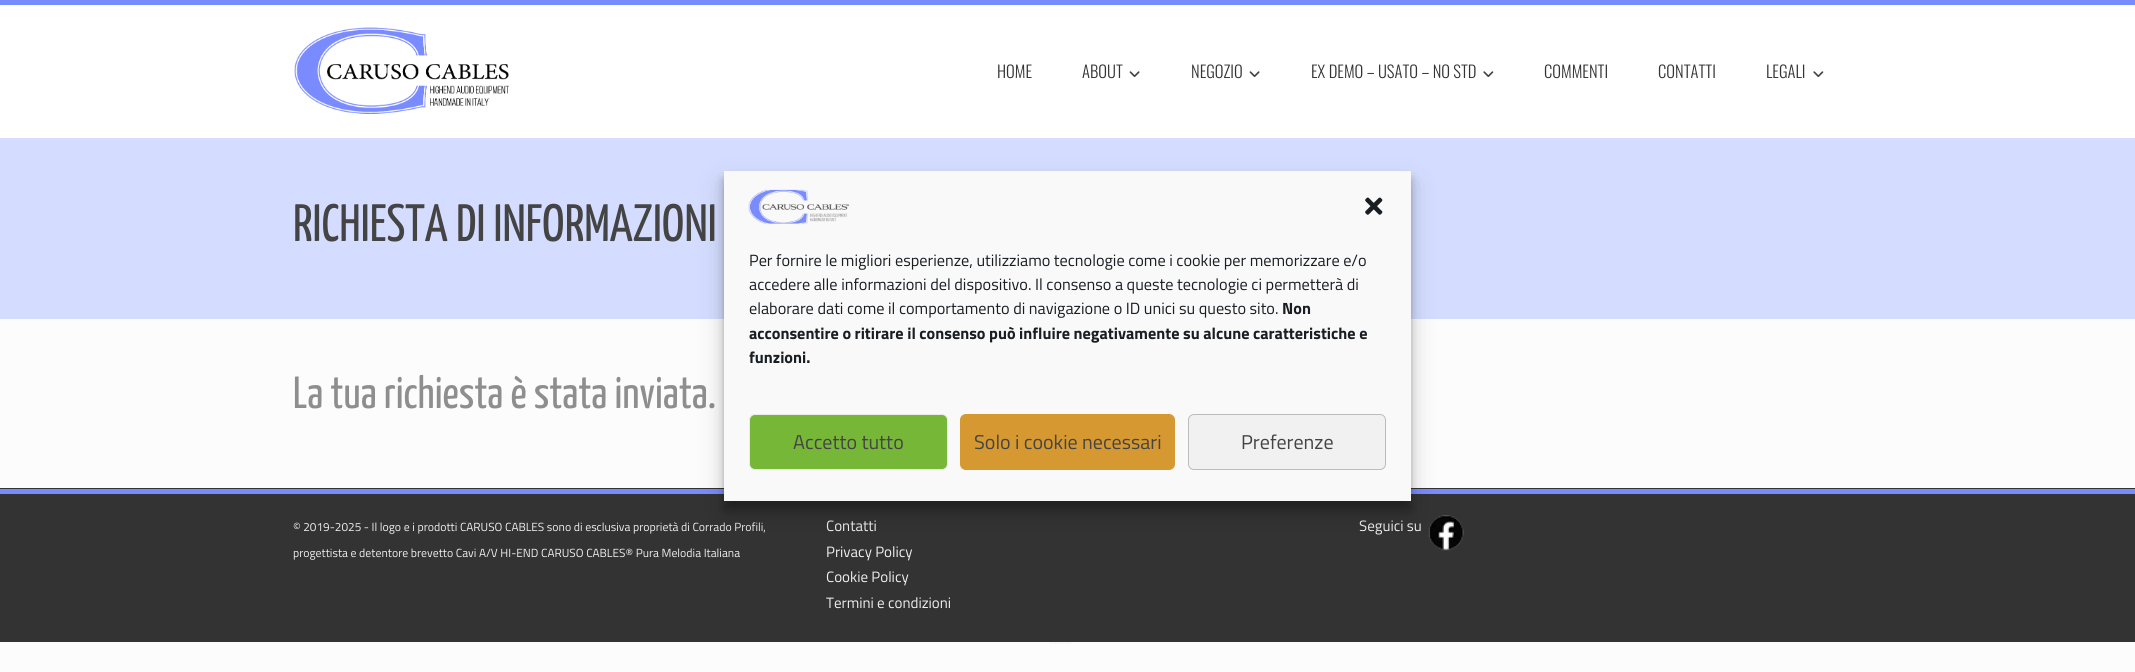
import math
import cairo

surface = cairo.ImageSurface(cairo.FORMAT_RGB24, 2135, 672)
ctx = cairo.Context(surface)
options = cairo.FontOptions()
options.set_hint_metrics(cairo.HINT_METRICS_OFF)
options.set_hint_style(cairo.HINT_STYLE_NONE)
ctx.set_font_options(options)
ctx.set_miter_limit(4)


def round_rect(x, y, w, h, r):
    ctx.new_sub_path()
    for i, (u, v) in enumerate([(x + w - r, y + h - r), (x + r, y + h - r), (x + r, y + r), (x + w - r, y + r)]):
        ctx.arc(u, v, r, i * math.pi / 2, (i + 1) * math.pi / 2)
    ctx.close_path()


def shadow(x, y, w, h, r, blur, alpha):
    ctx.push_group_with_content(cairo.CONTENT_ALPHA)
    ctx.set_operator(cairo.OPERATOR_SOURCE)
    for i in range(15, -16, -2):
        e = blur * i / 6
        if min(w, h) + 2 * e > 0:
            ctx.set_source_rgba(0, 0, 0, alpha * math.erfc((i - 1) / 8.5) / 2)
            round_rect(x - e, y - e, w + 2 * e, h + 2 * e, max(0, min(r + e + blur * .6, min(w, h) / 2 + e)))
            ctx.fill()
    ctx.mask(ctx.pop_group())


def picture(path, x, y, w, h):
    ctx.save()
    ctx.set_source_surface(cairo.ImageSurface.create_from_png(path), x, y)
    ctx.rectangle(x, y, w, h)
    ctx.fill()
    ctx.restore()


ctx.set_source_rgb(0.988, 0.988, 0.988)
ctx.paint()
ctx.set_source_rgb(1, 1, 1)
ctx.rectangle(0, 5, 2135, 133)
ctx.fill()
ctx.set_source_rgb(0.471, 0.545, 0.992)
ctx.rectangle(0, 0, 2135, 5)
ctx.fill()
picture("img1.png", 294, 27, 215, 87)
ctx.select_font_face("Oswald Light")
ctx.set_font_size(16.6)
ctx.set_source_rgb(0.2, 0.2, 0.2)
ctx.move_to(997, 78)
ctx.show_text("HOME")
ctx.move_to(1082, 78)
ctx.show_text("ABOUT")
picture("img2.png", 1129, 71, 11, 6)
ctx.move_to(1191, 78)
ctx.show_text("NEGOZIO")
picture("img2.png", 1249, 71, 11, 6)
ctx.move_to(1311, 78)
ctx.show_text("EX DEMO – USATO – NO STD")
picture("img3.png", 1483, 71, 11, 6)
ctx.move_to(1544, 78)
ctx.show_text("COMMENTI")
ctx.move_to(1658, 78)
ctx.show_text("CONTATTI")
ctx.move_to(1766, 78)
ctx.show_text("LEGALI")
picture("img3.png", 1813, 71, 11, 6)
ctx.set_source_rgb(0.831, 0.867, 1)
ctx.rectangle(0, 138, 2135, 181)
ctx.fill()
ctx.select_font_face("Yanone Kaffeesatz")
ctx.set_font_size(52.5)
ctx.set_source_rgb(0.267, 0.267, 0.267)
ctx.move_to(293, 241)
ctx.show_text("RICHIESTA DI INFORMAZIONI")
ctx.set_font_size(45)
ctx.set_source_rgb(0.557, 0.557, 0.557)
ctx.move_to(293, 408)
ctx.show_text("La tua richiesta è stata inviata.")
ctx.set_source_rgb(0.2, 0.2, 0.2)
ctx.rectangle(0, 488, 2135, 154)
ctx.fill()
ctx.set_source_rgb(0.471, 0.545, 0.992)
ctx.rectangle(0, 489, 2135, 5)
ctx.fill()
ctx.select_font_face("Titillium Web")
ctx.set_font_size(11.8)
ctx.set_source_rgb(0.933, 0.933, 0.933)
ctx.move_to(293, 531)
ctx.show_text("© 2019-2025 - Il logo e i prodotti CARUSO CABLES sono di esclusiva proprietà di Corrado Profili,")
ctx.move_to(293, 557)
ctx.show_text("progettista e detentore brevetto Cavi A/V HI-END CARUSO CABLES® Pura Melodia Italiana")
ctx.set_font_size(15)
ctx.move_to(826, 531)
ctx.show_text("Contatti")
ctx.move_to(826, 557)
ctx.show_text("Privacy Policy")
ctx.move_to(826, 582)
ctx.show_text("Cookie Policy")
ctx.move_to(826, 608)
ctx.show_text("Termini e condizioni")
ctx.move_to(1359, 531)
ctx.show_text("Seguici su")
picture("img4.png", 1428, 515, 36, 36)
ctx.new_path()
ctx.move_to(1050, 643)
ctx.line_to(1071, 643)
ctx.set_line_width(1.2)
ctx.set_dash([1.25, 1.25])
ctx.stroke()
ctx.set_source_rgb(0, 0, 0)
shadow(724, 179, 687, 330, 0, 4, 0.23)
shadow(724, 184, 687, 330, 0, 12.5, 0.19)
ctx.set_source_rgb(0.976, 0.976, 0.976)
ctx.rectangle(724, 171, 687, 330)
ctx.fill()
picture("img5.png", 748, 189, 101, 35)
picture("img6.png", 1365, 197, 18, 18)
ctx.set_font_size(16.25)
ctx.set_source_rgb(0.098, 0.118, 0.137)
ctx.move_to(749, 266)
ctx.show_text("Per fornire le migliori esperienze, utilizziamo tecnologie come i cookie per memorizzare e/o")
ctx.move_to(749, 290)
ctx.show_text("accedere alle informazioni del dispositivo. Il consenso a queste tecnologie ci permetterà di")
ctx.move_to(749, 314)
ctx.show_text("elaborare dati come il comportamento di navigazione o ID unici su questo sito.")
ctx.select_font_face("Titillium Web", cairo.FONT_SLANT_NORMAL, cairo.FONT_WEIGHT_BOLD)
ctx.move_to(1282, 314)
ctx.show_text("Non")
ctx.move_to(749, 339)
ctx.show_text("acconsentire o ritirare il consenso può influire negativamente su alcune caratteristiche e")
ctx.move_to(749, 363)
ctx.show_text("funzioni.")
ctx.set_source_rgb(0.463, 0.718, 0.22)
round_rect(749.5, 414.5, 198, 55, 5.5)
ctx.fill_preserve()
ctx.set_source_rgb(0.918, 0.918, 0.918)
ctx.set_line_width(1)
ctx.set_dash([])
ctx.stroke()
ctx.select_font_face("Titillium Web")
ctx.set_font_size(20)
ctx.set_source_rgb(0.267, 0.267, 0.267)
ctx.move_to(793, 449)
ctx.show_text("Accetto tutto")
ctx.set_source_rgb(0.839, 0.6, 0.192)
round_rect(960.5, 414.5, 214, 55, 5.5)
ctx.fill_preserve()
ctx.stroke()
ctx.set_source_rgb(0.267, 0.267, 0.267)
ctx.move_to(974, 449)
ctx.show_text("Solo i cookie necessari")
ctx.set_source_rgb(0.945, 0.945, 0.945)
round_rect(1188.5, 414.5, 197, 55, 5.5)
ctx.fill_preserve()
ctx.set_source_rgb(0.737, 0.737, 0.737)
ctx.stroke()
ctx.set_source_rgb(0.267, 0.267, 0.267)
ctx.move_to(1241, 449)
ctx.show_text("Preferenze")
surface.write_to_png("page.png")
